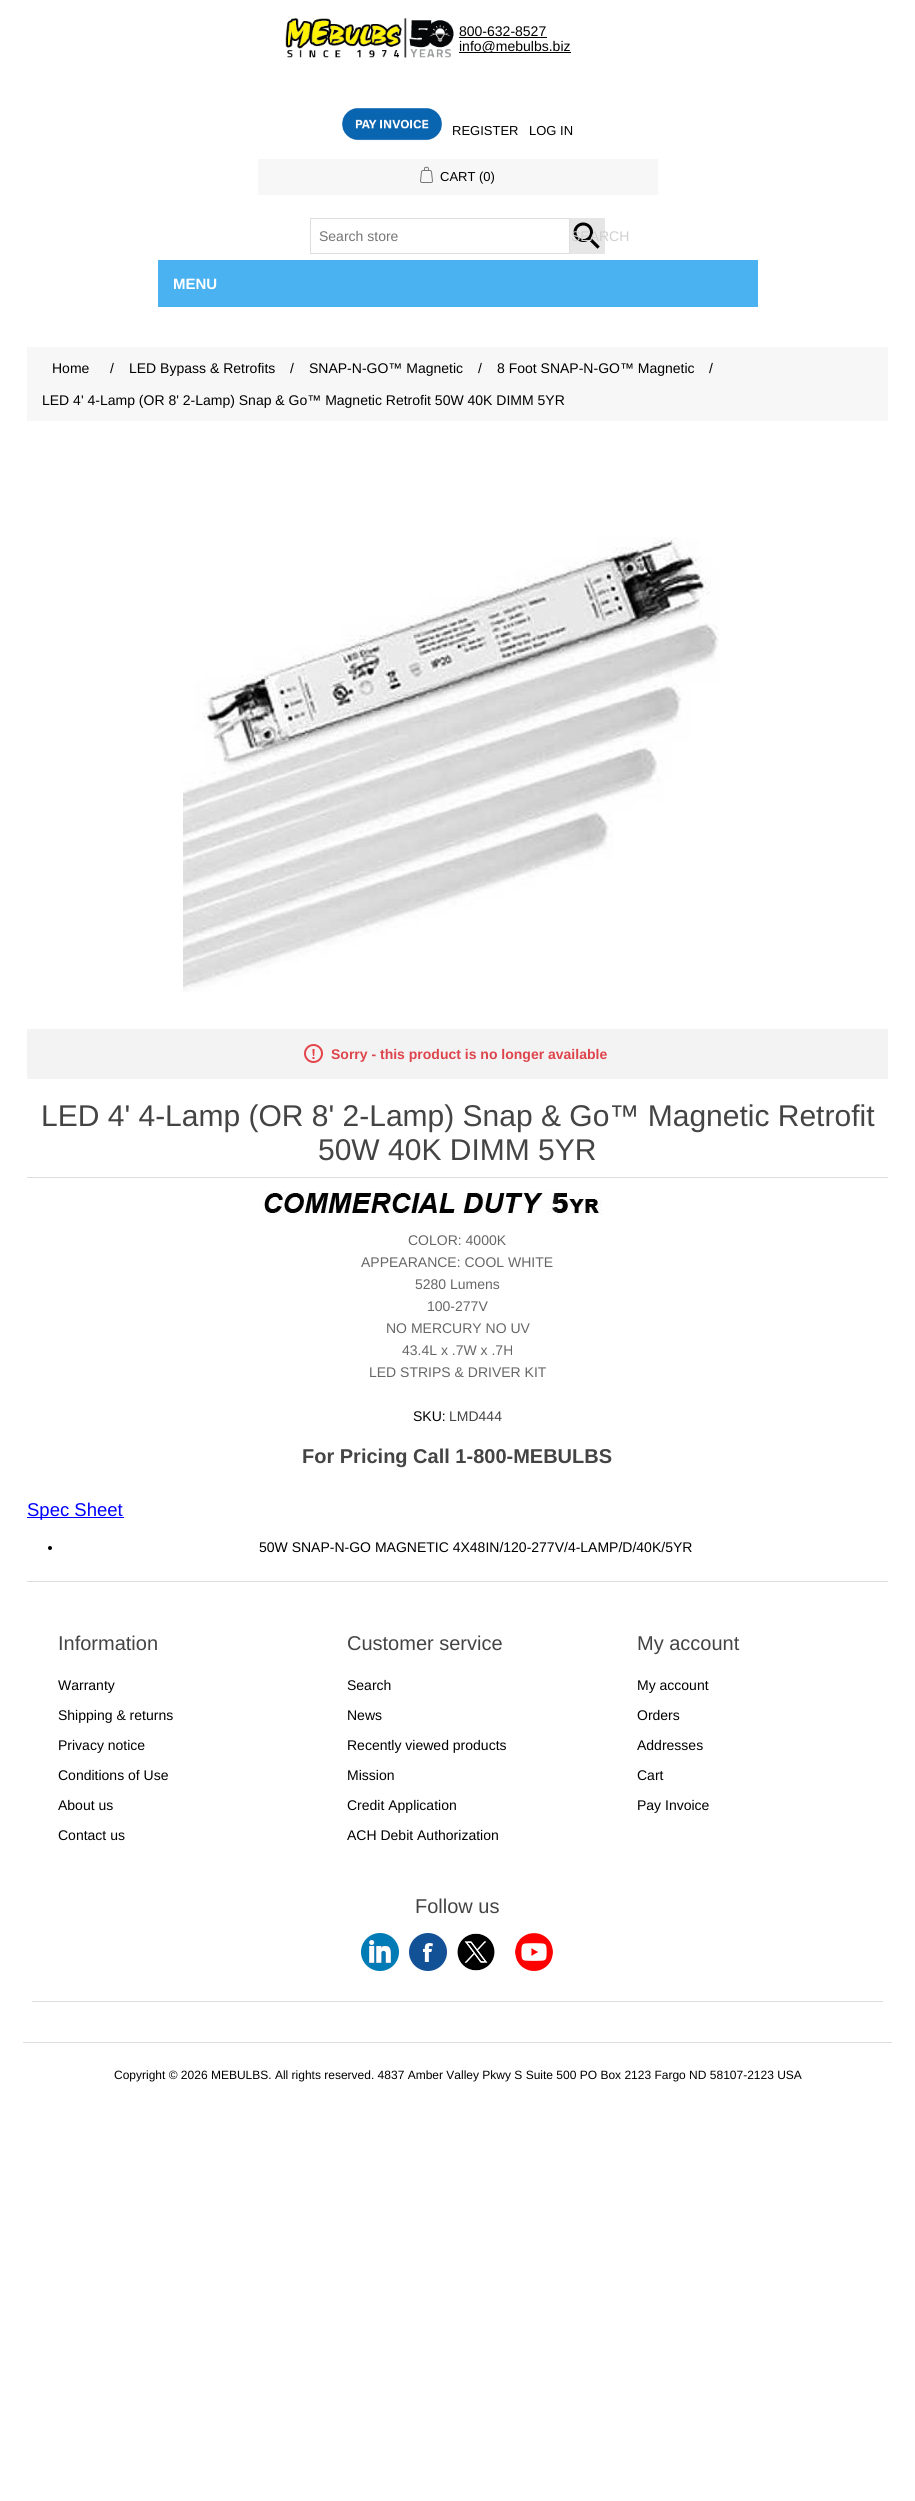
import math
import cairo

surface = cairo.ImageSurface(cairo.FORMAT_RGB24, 915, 2501)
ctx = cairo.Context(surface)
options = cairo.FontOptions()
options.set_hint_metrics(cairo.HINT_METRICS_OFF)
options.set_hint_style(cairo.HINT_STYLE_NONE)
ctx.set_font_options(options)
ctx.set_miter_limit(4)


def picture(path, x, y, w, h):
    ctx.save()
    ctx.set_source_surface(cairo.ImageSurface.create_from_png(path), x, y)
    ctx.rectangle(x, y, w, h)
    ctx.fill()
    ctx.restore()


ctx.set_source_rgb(1, 1, 1)
ctx.paint()
picture("img1.png", 285, 18, 169, 40)
ctx.select_font_face("Liberation Sans")
ctx.set_font_size(14)
ctx.set_source_rgb(0, 0, 0)
ctx.move_to(459, 36)
ctx.show_text("800-632-8527")
ctx.rectangle(459, 37, 88, 1)
ctx.fill()
ctx.rectangle(459, 52, 112, 1)
ctx.fill()
ctx.move_to(459, 51)
ctx.show_text("info@mebulbs.biz")
picture("img2.png", 342, 108, 100, 33)
ctx.set_font_size(13)
ctx.move_to(452, 135)
ctx.show_text("REGISTER")
ctx.move_to(529, 135)
ctx.show_text("LOG IN")
ctx.set_source_rgb(0.965, 0.965, 0.965)
ctx.rectangle(258, 159, 400, 36)
ctx.fill()
picture("img3.png", 420, 166, 13, 17)
ctx.set_source_rgb(0, 0, 0)
ctx.move_to(440, 181)
ctx.show_text("CART (0)")
ctx.rectangle(310.5, 218.5, 259, 35)
ctx.set_source_rgb(0.867, 0.867, 0.867)
ctx.set_line_width(1)
ctx.stroke()
ctx.set_font_size(14)
ctx.set_source_rgb(0.459, 0.459, 0.459)
ctx.move_to(319, 241)
ctx.show_text("Search store")
ctx.set_source_rgb(0.902, 0.902, 0.902)
ctx.rectangle(570, 218, 35, 36)
ctx.fill()
picture("img4.png", 573, 222, 27, 27)
ctx.set_source_rgb(0.812, 0.812, 0.812)
ctx.move_to(571, 241)
ctx.show_text("SEARCH")
ctx.set_source_rgb(0.29, 0.698, 0.945)
ctx.rectangle(158, 260, 600, 47)
ctx.fill()
ctx.select_font_face("Liberation Sans", cairo.FONT_SLANT_NORMAL, cairo.FONT_WEIGHT_BOLD)
ctx.set_font_size(15)
ctx.set_source_rgb(1, 1, 1)
ctx.move_to(173, 289)
ctx.show_text("MENU")
ctx.set_source_rgb(0.965, 0.965, 0.965)
ctx.rectangle(27, 347, 861, 74)
ctx.fill()
ctx.select_font_face("Liberation Sans")
ctx.set_font_size(14)
ctx.set_source_rgb(0, 0, 0)
ctx.move_to(52, 373)
ctx.show_text("Home")
ctx.move_to(110, 373)
ctx.show_text("/")
ctx.move_to(129, 373)
ctx.show_text("LED Bypass & Retrofits")
ctx.move_to(290, 373)
ctx.show_text("/")
ctx.move_to(309, 373)
ctx.show_text("SNAP-N-GO™ Magnetic")
ctx.move_to(478, 373)
ctx.show_text("/")
ctx.move_to(497, 373)
ctx.show_text("8 Foot SNAP-N-GO™ Magnetic")
ctx.move_to(709, 373)
ctx.show_text("/")
ctx.move_to(42, 405)
ctx.show_text("LED 4' 4-Lamp (OR 8' 2-Lamp) Snap & Go™ Magnetic Retrofit 50W 40K DIMM 5YR")
ctx.set_source_rgb(0.867, 0.867, 0.867)
ctx.rectangle(27, 1581, 861, 1)
ctx.fill()
picture("img5.png", 183, 537, 536, 455)
ctx.set_source_rgb(0.953, 0.953, 0.953)
ctx.rectangle(27, 1029, 861, 50)
ctx.fill()
picture("img6.png", 304, 1044, 19, 19)
ctx.select_font_face("Liberation Sans", cairo.FONT_SLANT_NORMAL, cairo.FONT_WEIGHT_BOLD)
ctx.set_source_rgb(0.871, 0.267, 0.298)
ctx.move_to(331, 1059)
ctx.show_text("Sorry - this product is no longer available")
ctx.set_source_rgb(0.867, 0.867, 0.867)
ctx.rectangle(27, 1177, 861, 1)
ctx.fill()
ctx.select_font_face("Liberation Sans")
ctx.set_font_size(30)
ctx.set_source_rgb(0.267, 0.267, 0.267)
ctx.move_to(41, 1126)
ctx.show_text("LED 4' 4-Lamp (OR 8' 2-Lamp) Snap & Go™ Magnetic Retrofit")
ctx.move_to(318, 1160)
ctx.show_text("50W 40K DIMM 5YR")
picture("img7.png", 260, 1191, 342, 24)
ctx.set_font_size(14)
ctx.set_source_rgb(0.4, 0.4, 0.4)
ctx.move_to(408, 1245)
ctx.show_text("COLOR: 4000K")
ctx.move_to(361, 1267)
ctx.show_text("APPEARANCE: COOL WHITE")
ctx.move_to(415, 1289)
ctx.show_text("5280 Lumens")
ctx.move_to(427, 1311)
ctx.show_text("100-277V")
ctx.move_to(386, 1333)
ctx.show_text("NO MERCURY NO UV")
ctx.move_to(402, 1355)
ctx.show_text("43.4L x .7W x .7H")
ctx.move_to(369, 1377)
ctx.show_text("LED STRIPS & DRIVER KIT")
ctx.set_source_rgb(0, 0, 0)
ctx.move_to(413, 1421)
ctx.show_text("SKU:")
ctx.set_source_rgb(0.267, 0.267, 0.267)
ctx.move_to(449, 1421)
ctx.show_text("LMD444")
ctx.select_font_face("Liberation Sans", cairo.FONT_SLANT_NORMAL, cairo.FONT_WEIGHT_BOLD)
ctx.set_font_size(20)
ctx.move_to(302, 1463)
ctx.show_text("For Pricing Call 1-800-MEBULBS")
ctx.set_source_rgb(0, 0, 1)
ctx.rectangle(27, 1517, 97, 1)
ctx.fill()
ctx.select_font_face("Liberation Sans")
ctx.set_font_size(18.5)
ctx.move_to(27, 1516)
ctx.show_text("Spec Sheet")
ctx.set_source_rgb(0, 0, 0)
ctx.new_path()
ctx.arc(50, 1548, 2, 0, 2 * math.pi)
ctx.fill()
ctx.set_font_size(14)
ctx.move_to(259, 1552)
ctx.show_text("50W SNAP-N-GO MAGNETIC 4X48IN/120-277V/4-LAMP/D/40K/5YR")
ctx.set_source_rgb(0.867, 0.867, 0.867)
ctx.rectangle(23, 2042, 869, 1)
ctx.fill()
ctx.set_font_size(20)
ctx.set_source_rgb(0.267, 0.267, 0.267)
ctx.move_to(58, 1650)
ctx.show_text("Information")
ctx.set_font_size(14)
ctx.set_source_rgb(0, 0, 0)
ctx.move_to(58, 1690)
ctx.show_text("Warranty")
ctx.move_to(58, 1720)
ctx.show_text("Shipping & returns")
ctx.move_to(58, 1750)
ctx.show_text("Privacy notice")
ctx.move_to(58, 1780)
ctx.show_text("Conditions of Use")
ctx.move_to(58, 1810)
ctx.show_text("About us")
ctx.move_to(58, 1840)
ctx.show_text("Contact us")
ctx.set_font_size(20)
ctx.set_source_rgb(0.267, 0.267, 0.267)
ctx.move_to(347, 1650)
ctx.show_text("Customer service")
ctx.set_font_size(14)
ctx.set_source_rgb(0, 0, 0)
ctx.move_to(347, 1690)
ctx.show_text("Search")
ctx.move_to(347, 1720)
ctx.show_text("News")
ctx.move_to(347, 1750)
ctx.show_text("Recently viewed products")
ctx.move_to(347, 1780)
ctx.show_text("Mission")
ctx.move_to(347, 1810)
ctx.show_text("Credit Application")
ctx.move_to(347, 1840)
ctx.show_text("ACH Debit Authorization")
ctx.set_font_size(20)
ctx.set_source_rgb(0.267, 0.267, 0.267)
ctx.move_to(637, 1650)
ctx.show_text("My account")
ctx.set_font_size(14)
ctx.set_source_rgb(0, 0, 0)
ctx.move_to(637, 1690)
ctx.show_text("My account")
ctx.move_to(637, 1720)
ctx.show_text("Orders")
ctx.move_to(637, 1750)
ctx.show_text("Addresses")
ctx.move_to(637, 1780)
ctx.show_text("Cart")
ctx.move_to(637, 1810)
ctx.show_text("Pay Invoice")
ctx.set_font_size(20)
ctx.set_source_rgb(0.267, 0.267, 0.267)
ctx.move_to(415, 1913)
ctx.show_text("Follow us")
ctx.set_source_rgb(0.867, 0.867, 0.867)
ctx.rectangle(32, 2001, 851, 1)
ctx.fill()
picture("img8.png", 361, 1933, 38, 38)
picture("img9.png", 409, 1933, 38, 38)
picture("img10.png", 457, 1933, 38, 38)
picture("img11.png", 515, 1933, 38, 38)
ctx.set_font_size(12)
ctx.set_source_rgb(0, 0, 0)
ctx.move_to(114, 2079)
ctx.show_text("Copyright © 2026 MEBULBS. All rights reserved. 4837 Amber Valley Pkwy S Suite 500 PO Box 2123 Fargo ND 58107-2123 USA")
surface.write_to_png("page.png")
